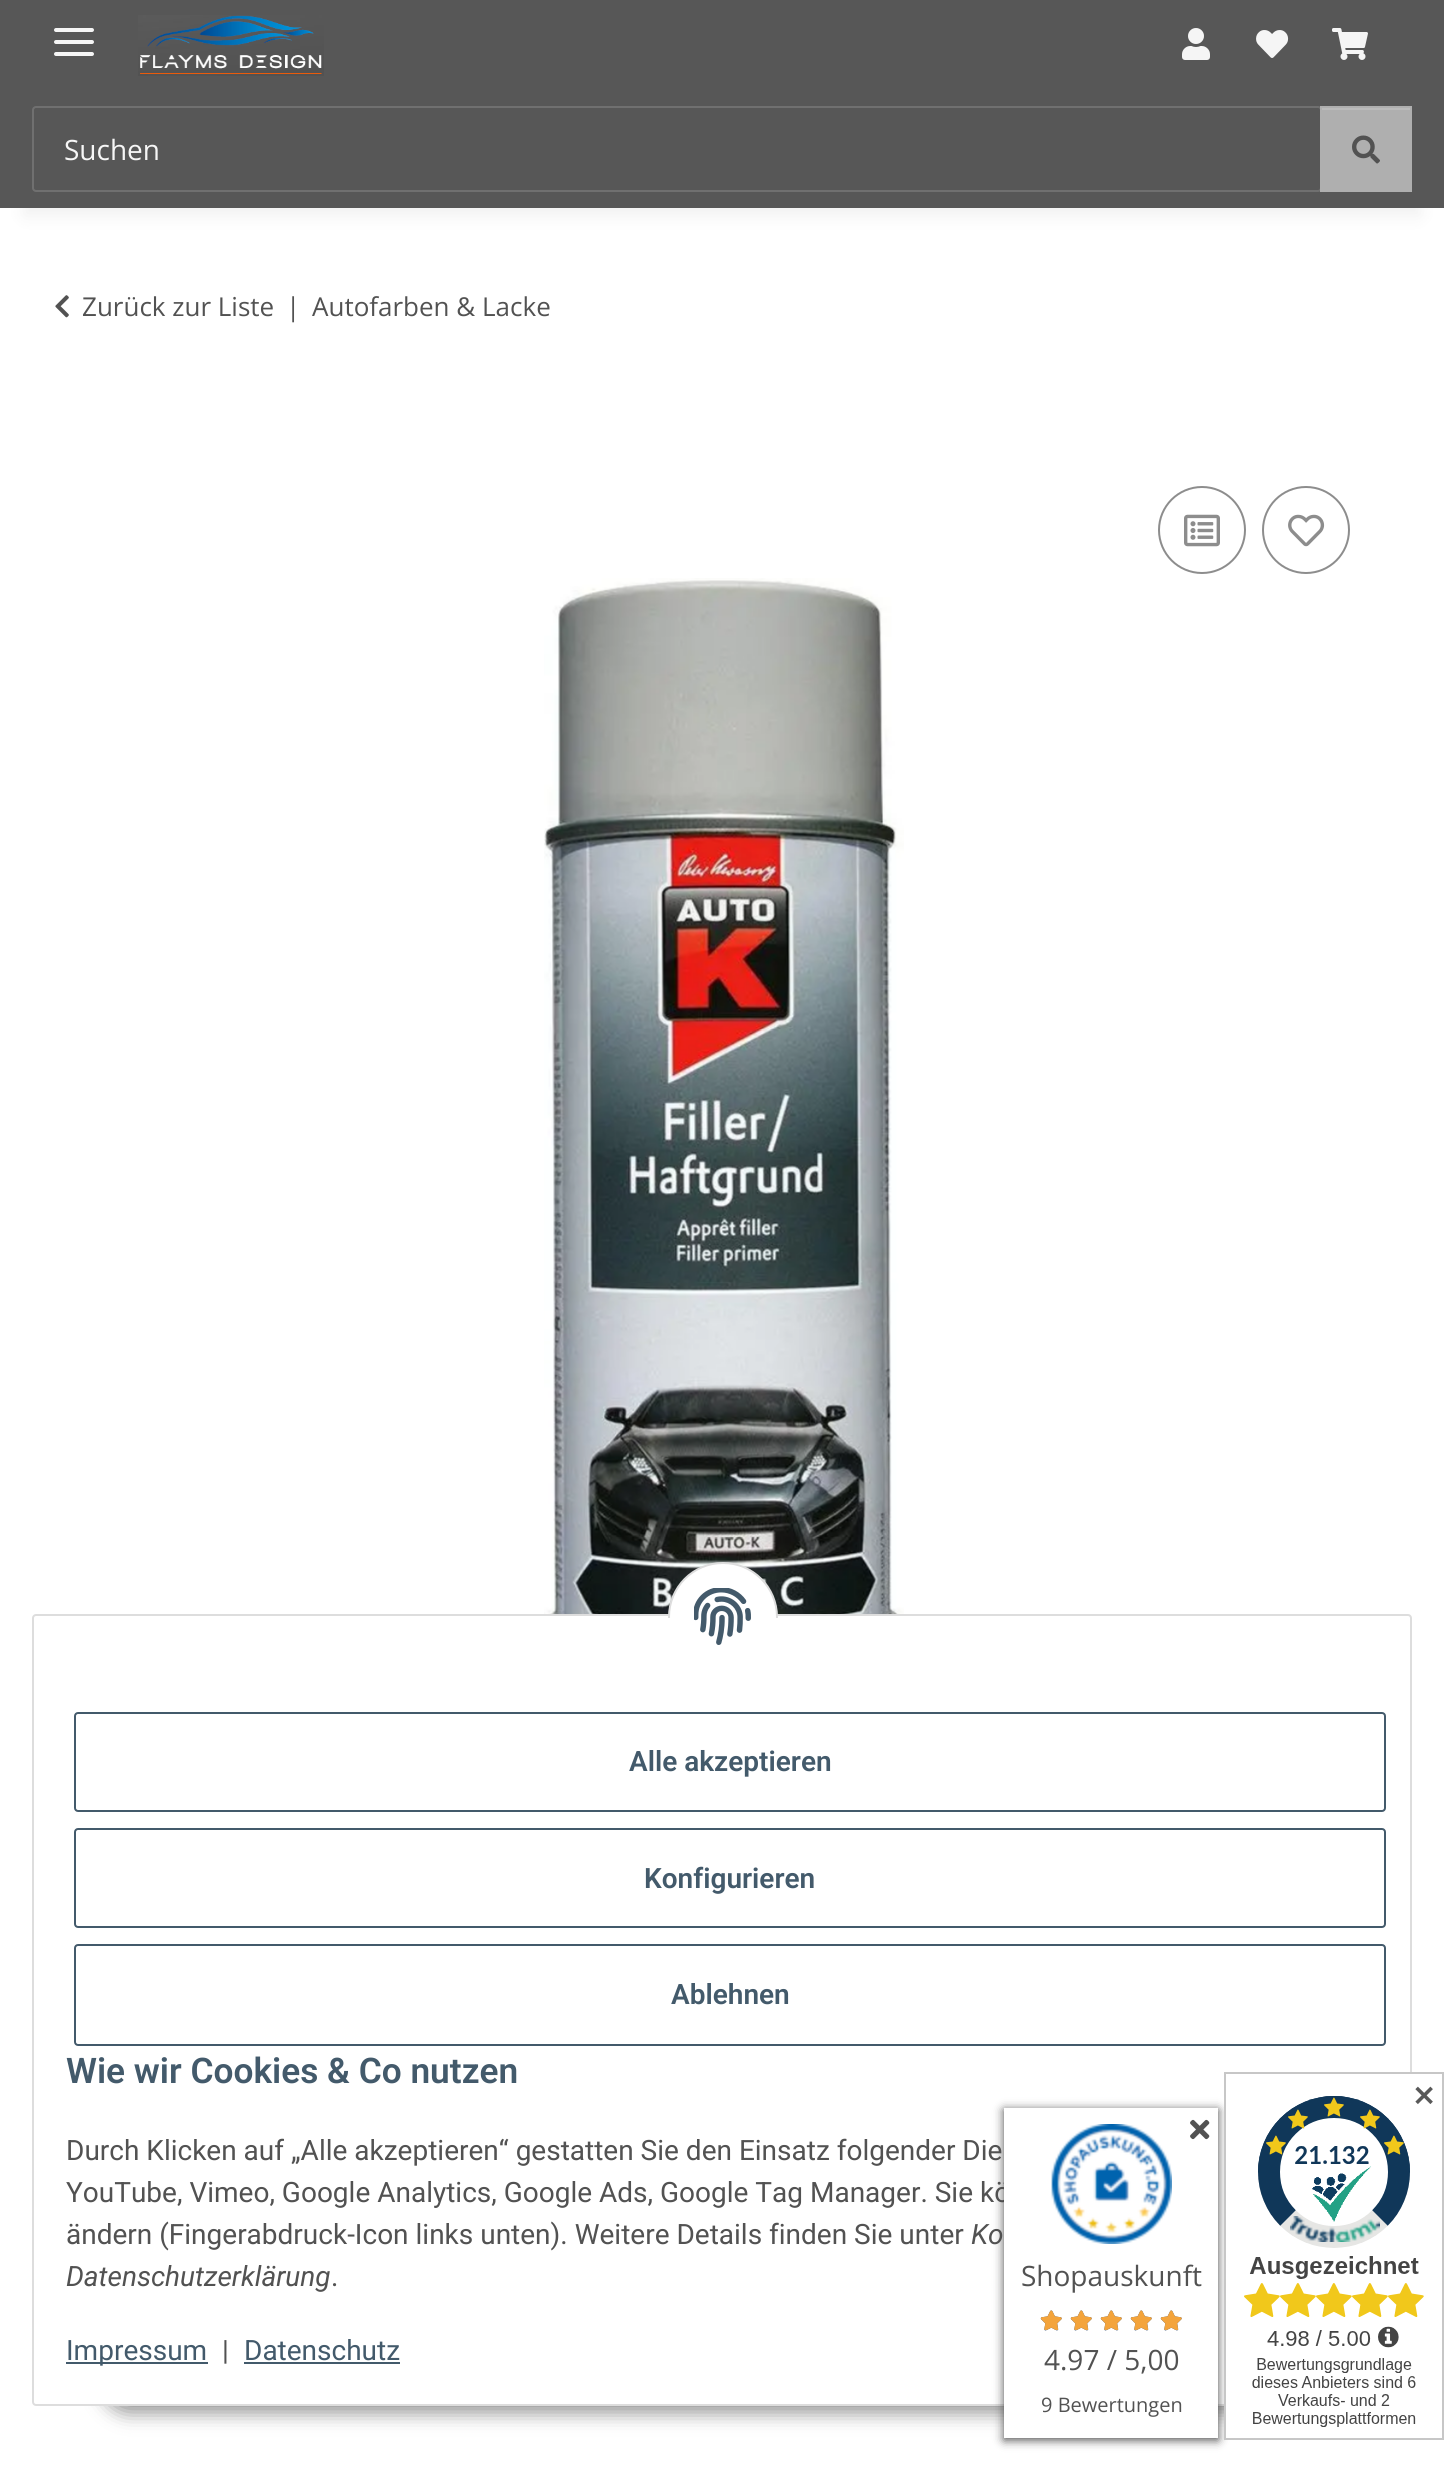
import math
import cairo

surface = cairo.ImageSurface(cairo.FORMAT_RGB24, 1444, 2469)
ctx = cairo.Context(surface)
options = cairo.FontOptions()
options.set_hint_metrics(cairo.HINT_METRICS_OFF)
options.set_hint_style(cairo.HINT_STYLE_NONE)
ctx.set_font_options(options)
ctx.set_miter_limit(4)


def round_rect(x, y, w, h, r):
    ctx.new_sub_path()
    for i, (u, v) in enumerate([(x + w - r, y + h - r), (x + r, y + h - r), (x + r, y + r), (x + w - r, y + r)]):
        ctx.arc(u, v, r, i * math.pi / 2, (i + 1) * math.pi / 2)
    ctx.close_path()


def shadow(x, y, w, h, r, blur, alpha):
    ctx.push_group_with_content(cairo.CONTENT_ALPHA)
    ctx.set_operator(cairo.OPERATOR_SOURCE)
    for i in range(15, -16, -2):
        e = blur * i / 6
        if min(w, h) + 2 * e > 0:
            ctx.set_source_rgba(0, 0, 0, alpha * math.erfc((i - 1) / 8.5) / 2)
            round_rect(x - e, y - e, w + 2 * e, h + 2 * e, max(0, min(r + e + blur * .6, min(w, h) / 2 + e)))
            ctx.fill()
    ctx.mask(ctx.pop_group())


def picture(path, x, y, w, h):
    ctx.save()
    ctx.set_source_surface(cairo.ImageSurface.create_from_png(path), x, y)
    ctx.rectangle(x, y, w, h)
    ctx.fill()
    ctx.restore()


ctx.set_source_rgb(1, 1, 1)
ctx.paint()
ctx.set_source_rgb(0, 0, 0)
shadow(24, 56, 1396, 160, 0, 9, 0.06)
ctx.set_source_rgb(0.341, 0.341, 0.341)
ctx.rectangle(0, 0, 1444, 208)
ctx.fill()
ctx.set_source_rgb(0.961, 0.961, 0.961)
round_rect(54, 40, 40, 4, 2)
ctx.fill()
round_rect(54, 28, 40, 4, 2)
ctx.fill()
round_rect(54, 52, 40, 4, 2)
ctx.fill()
picture("img1.png", 138, 15, 186, 61)
picture("img2.png", 1182, 28, 28, 32)
picture("img3.png", 1256, 30, 33, 28)
picture("img4.png", 1332, 28, 36, 32)
round_rect(33, 107, 1288, 84, 3)
ctx.set_source_rgb(0.439, 0.439, 0.439)
ctx.stroke()
ctx.select_font_face("Open Sans")
ctx.set_font_size(28)
ctx.set_source_rgb(0.961, 0.961, 0.961)
ctx.move_to(64, 160)
ctx.show_text("Suchen")
ctx.set_source_rgb(0.686, 0.686, 0.686)
ctx.rectangle(1320, 106, 92, 86)
ctx.fill()
ctx.set_source_rgb(0.733, 0.733, 0.733)
ctx.rectangle(1322, 108, 88, 2)
ctx.fill()
picture("img5.png", 1352, 135, 28, 29)
picture("img6.png", 55, 295, 14, 23)
ctx.set_font_size(26)
ctx.set_source_rgb(0.322, 0.322, 0.322)
ctx.move_to(82, 316)
ctx.show_text("Zurück zur Liste")
ctx.move_to(286, 316)
ctx.show_text("|")
ctx.move_to(312, 316)
ctx.show_text("Autofarben & Lacke")
ctx.new_path()
ctx.arc(1202, 530, 43, 0, 2 * math.pi)
ctx.set_source_rgb(0.553, 0.553, 0.553)
ctx.stroke()
picture("img7.png", 1184, 514, 36, 33)
ctx.arc(1306, 530, 43, 0, 2 * math.pi)
ctx.stroke()
picture("img8.png", 1288, 514, 37, 33)
picture("img9.png", 544, 578, 360, 1036)
ctx.set_source_rgb(0, 0, 0)
shadow(102, 2348, 1240, 64, 32, 10, 0.45)
ctx.set_source_rgb(1, 1, 1)
round_rect(33, 1615, 1378, 790, 3)
ctx.fill_preserve()
ctx.set_source_rgb(0.867, 0.867, 0.867)
ctx.stroke()
ctx.set_source_rgb(1, 1, 1)
ctx.arc(723, 1617, 54, 0, 2 * math.pi)
ctx.fill_preserve()
ctx.set_source_rgb(0.867, 0.867, 0.867)
ctx.stroke()
ctx.set_source_rgb(1, 1, 1)
ctx.rectangle(668, 1618, 110, 54)
ctx.fill()
picture("img10.png", 694, 1588, 57, 57)
round_rect(75, 1713, 1310, 98, 3)
ctx.set_source_rgb(0.263, 0.353, 0.42)
ctx.stroke()
ctx.select_font_face("Roboto SemiBold")
ctx.set_font_size(28)
ctx.move_to(629, 1771)
ctx.show_text("Alle akzeptieren")
round_rect(75, 1829, 1310, 98, 3)
ctx.stroke()
ctx.move_to(644, 1888)
ctx.show_text("Konfigurieren")
round_rect(75, 1945, 1310, 100, 3)
ctx.stroke()
ctx.move_to(671, 2004)
ctx.show_text("Ablehnen")
ctx.set_font_size(35.25)
ctx.move_to(66, 2083)
ctx.show_text("Wie wir Cookies & Co nutzen")
ctx.select_font_face("Roboto")
ctx.set_font_size(28)
ctx.set_source_rgb(0.322, 0.322, 0.322)
ctx.move_to(66, 2160)
ctx.show_text("Durch Klicken auf „Alle akzeptieren“ gestatten Sie den Einsatz folgender Die")
ctx.move_to(66, 2202)
ctx.show_text("YouTube, Vimeo, Google Analytics, Google Ads, Google Tag Manager. Sie kö")
ctx.move_to(66, 2244)
ctx.show_text("ändern (Fingerabdruck-Icon links unten). Weitere Details finden Sie unter")
ctx.select_font_face("Roboto", cairo.FONT_SLANT_ITALIC)
ctx.move_to(971, 2244)
ctx.show_text("Ko")
ctx.move_to(66, 2286)
ctx.show_text("Datenschutzerklärung")
ctx.select_font_face("Roboto")
ctx.move_to(331, 2286)
ctx.show_text(".")
ctx.set_source_rgb(0.263, 0.353, 0.42)
ctx.rectangle(66, 2362, 142, 2)
ctx.fill()
ctx.move_to(66, 2360)
ctx.show_text("Impressum")
ctx.set_source_rgb(0.322, 0.322, 0.322)
ctx.move_to(222, 2360)
ctx.show_text("|")
ctx.set_source_rgb(0.263, 0.353, 0.42)
ctx.move_to(244, 2360)
ctx.show_text("Datenschutz")
ctx.rectangle(244, 2362, 156, 2)
ctx.fill()
ctx.set_source_rgb(0.29, 0.29, 0.29)
shadow(1004, 2110, 214, 330, 0, 5, 1)
picture("img11.png", 1224, 2072, 220, 368)
ctx.select_font_face("DejaVu Sans", cairo.FONT_SLANT_NORMAL, cairo.FONT_WEIGHT_BOLD)
ctx.set_source_rgb(0.349, 0.349, 0.349)
ctx.move_to(1412, 2106)
ctx.show_text("✕")
ctx.set_source_rgb(1, 1, 1)
ctx.rectangle(1004, 2108, 214, 330)
ctx.fill()
picture("img12.png", 1051, 2124, 121, 120)
picture("img13.png", 1190, 2119, 20, 21)
ctx.select_font_face("Open Sans")
ctx.set_source_rgb(0.322, 0.322, 0.322)
ctx.move_to(1021, 2286)
ctx.show_text("Shopauskunft")
picture("img14.png", 1040, 2310, 22, 21)
picture("img15.png", 1040, 2310, 22, 20)
picture("img14.png", 1070, 2310, 22, 21)
picture("img15.png", 1070, 2310, 22, 20)
picture("img14.png", 1100, 2310, 22, 21)
picture("img15.png", 1100, 2310, 22, 20)
picture("img14.png", 1130, 2310, 22, 21)
picture("img15.png", 1130, 2310, 22, 20)
picture("img14.png", 1160, 2310, 22, 21)
picture("img15.png", 1160, 2310, 22, 20)
ctx.move_to(1044, 2370)
ctx.show_text("4.97 / 5,00")
ctx.set_font_size(20)
ctx.move_to(1041, 2412)
ctx.show_text("9 Bewertungen")
surface.write_to_png("page.png")
